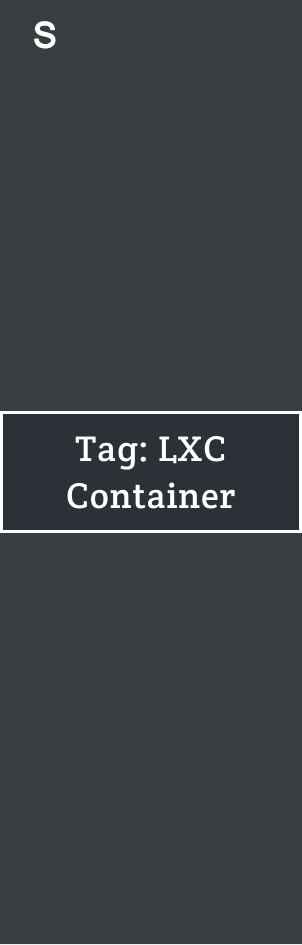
import math
import cairo

surface = cairo.ImageSurface(cairo.FORMAT_RGB24, 302, 945)
ctx = cairo.Context(surface)
options = cairo.FontOptions()
options.set_hint_metrics(cairo.HINT_METRICS_OFF)
options.set_hint_style(cairo.HINT_STYLE_NONE)
ctx.set_font_options(options)
ctx.set_miter_limit(4)


def spaced_text(x, y, s, letter, word):
    ctx.move_to(x, y)
    for ch in s:
        ctx.show_text(ch)
        ctx.rel_move_to(letter + word * (ch == ' '), 0)


def picture(path, x, y, w, h):
    ctx.save()
    ctx.set_source_surface(cairo.ImageSurface.create_from_png(path), x, y)
    ctx.rectangle(x, y, w, h)
    ctx.fill()
    ctx.restore()


ctx.set_source_rgb(0.22, 0.243, 0.247)
ctx.paint()
picture("img1.png", 34, 21, 22, 28)
ctx.set_source_rgb(0.933, 0.933, 0.933)
ctx.rectangle(0, 944, 302, 1)
ctx.fill()
ctx.set_source_rgb(0.169, 0.192, 0.212)
ctx.rectangle(1.5, 412.5, 299, 119)
ctx.fill_preserve()
ctx.set_source_rgb(1, 1, 1)
ctx.set_line_width(3)
ctx.stroke()
ctx.select_font_face("Crete Round")
ctx.set_font_size(36)
spaced_text(75, 461, "Tag: LXC", 1, 0)
spaced_text(66, 508, "Container", 1, 0)
surface.write_to_png("page.png")
